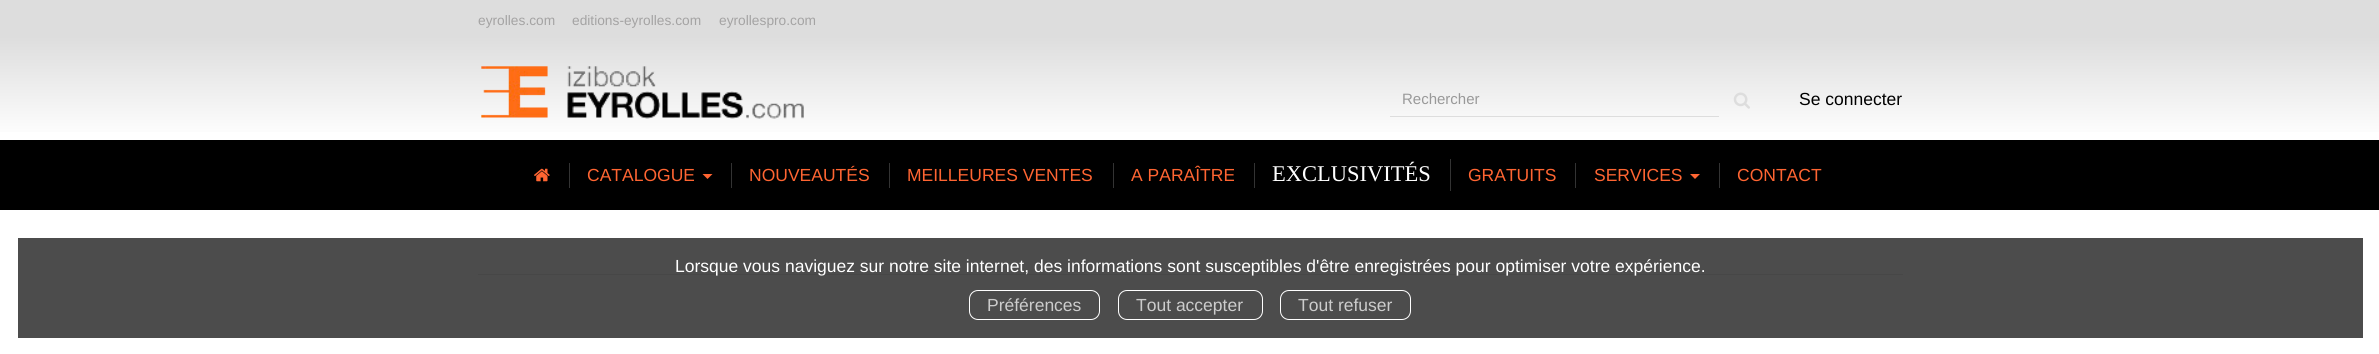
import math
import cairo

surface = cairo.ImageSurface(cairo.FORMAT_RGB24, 2379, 354)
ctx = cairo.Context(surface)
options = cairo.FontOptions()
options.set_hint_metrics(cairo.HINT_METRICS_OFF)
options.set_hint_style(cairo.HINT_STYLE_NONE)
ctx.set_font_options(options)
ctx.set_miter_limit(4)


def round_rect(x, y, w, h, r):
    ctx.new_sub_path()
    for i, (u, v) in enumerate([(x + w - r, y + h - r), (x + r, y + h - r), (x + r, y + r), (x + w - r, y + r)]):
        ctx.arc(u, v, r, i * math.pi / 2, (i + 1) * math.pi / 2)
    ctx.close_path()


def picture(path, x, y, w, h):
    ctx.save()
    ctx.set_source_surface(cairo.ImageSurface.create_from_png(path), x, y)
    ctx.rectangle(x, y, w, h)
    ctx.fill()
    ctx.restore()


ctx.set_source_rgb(1, 1, 1)
ctx.paint()
ctx.set_source_rgb(0.867, 0.867, 0.867)
ctx.rectangle(0, 0, 2379, 38)
ctx.fill()
ctx.select_font_face("Liberation Sans")
ctx.set_font_size(13.75)
ctx.set_source_rgb(0.643, 0.639, 0.639)
ctx.move_to(478, 25)
ctx.show_text("eyrolles.com")
ctx.move_to(572, 25)
ctx.show_text("editions-eyrolles.com")
ctx.move_to(719, 25)
ctx.show_text("eyrollespro.com")
gradient = cairo.LinearGradient(1190, 37, 1190, 140)
gradient.add_color_stop_rgba(0, 0.867, 0.867, 0.867, 1)
gradient.add_color_stop_rgba(1, 1, 1, 1, 1)
ctx.set_source(gradient)
ctx.rectangle(0, 38, 2379, 94)
ctx.fill()
picture("img1.png", 481, 66, 323, 53)
ctx.set_source_rgb(0.867, 0.867, 0.867)
ctx.rectangle(1390, 116, 329, 1)
ctx.fill()
ctx.set_font_size(15)
ctx.set_source_rgb(0.6, 0.6, 0.6)
ctx.move_to(1402, 104)
ctx.show_text("Rechercher")
picture("img2.png", 1733, 92, 17, 17)
ctx.set_font_size(17.5)
ctx.set_source_rgb(0, 0, 0)
ctx.move_to(1799, 105)
ctx.show_text("Se connecter")
ctx.rectangle(0, 140, 2379, 70)
ctx.fill()
ctx.set_source_rgb(0.2, 0.2, 0.2)
ctx.rectangle(569, 163, 1, 25)
ctx.fill()
picture("img3.png", 534, 168, 16, 14)
ctx.rectangle(731, 163, 1, 25)
ctx.fill()
ctx.set_source_rgb(1, 0.396, 0.196)
ctx.move_to(587, 181)
ctx.show_text("CATALOGUE")
ctx.new_path()
ctx.move_to(702.5, 174)
ctx.line_to(712.5, 174)
ctx.line_to(707.5, 179)
ctx.close_path()
ctx.fill()
ctx.set_source_rgb(0.2, 0.2, 0.2)
ctx.rectangle(889, 163, 1, 25)
ctx.fill()
ctx.set_source_rgb(1, 0.396, 0.196)
ctx.move_to(749, 181)
ctx.show_text("NOUVEAUTÉS")
ctx.set_source_rgb(0.2, 0.2, 0.2)
ctx.rectangle(1113, 163, 1, 25)
ctx.fill()
ctx.set_source_rgb(1, 0.396, 0.196)
ctx.move_to(907, 181)
ctx.show_text("MEILLEURES VENTES")
ctx.set_source_rgb(0.2, 0.2, 0.2)
ctx.rectangle(1254, 163, 1, 25)
ctx.fill()
ctx.set_source_rgb(1, 0.396, 0.196)
ctx.move_to(1131, 181)
ctx.show_text("A PARAÎTRE")
ctx.set_source_rgb(0.2, 0.2, 0.2)
ctx.rectangle(1450, 159, 1, 32)
ctx.fill()
ctx.select_font_face("Liberation Serif")
ctx.set_font_size(22.5)
ctx.set_source_rgb(1, 1, 1)
ctx.move_to(1272, 181)
ctx.show_text("EXCLUSIVITÉS")
ctx.set_source_rgb(0.2, 0.2, 0.2)
ctx.rectangle(1575, 163, 1, 25)
ctx.fill()
ctx.select_font_face("Liberation Sans")
ctx.set_font_size(17.5)
ctx.set_source_rgb(1, 0.396, 0.196)
ctx.move_to(1468, 181)
ctx.show_text("GRATUITS")
ctx.set_source_rgb(0.2, 0.2, 0.2)
ctx.rectangle(1719, 163, 1, 25)
ctx.fill()
ctx.set_source_rgb(1, 0.396, 0.196)
ctx.move_to(1594, 181)
ctx.show_text("SERVICES")
ctx.new_path()
ctx.move_to(1690, 174)
ctx.line_to(1700, 174)
ctx.line_to(1695, 179)
ctx.close_path()
ctx.fill()
ctx.move_to(1737, 181)
ctx.show_text("CONTACT")
ctx.set_source_rgb(0.933, 0.933, 0.933)
ctx.rectangle(478, 274, 1425, 1)
ctx.fill()
ctx.set_source_rgba(0, 0, 0, 0.7)
ctx.rectangle(18, 238, 2345, 100)
ctx.fill()
ctx.set_source_rgb(1, 1, 1)
ctx.move_to(675, 272)
ctx.show_text("Lorsque vous naviguez sur notre site internet, des informations sont susceptibles d'être enregistrées pour optimiser votre expérience.")
round_rect(969.5, 290.5, 130, 29, 8.5)
ctx.set_line_width(1)
ctx.stroke()
ctx.set_source_rgb(0.8, 0.8, 0.8)
ctx.move_to(987, 311)
ctx.show_text("Préférences")
round_rect(1118.5, 290.5, 144, 29, 8.5)
ctx.set_source_rgb(1, 1, 1)
ctx.stroke()
ctx.set_source_rgb(0.8, 0.8, 0.8)
ctx.move_to(1136, 311)
ctx.show_text("Tout accepter")
round_rect(1280.5, 290.5, 130, 29, 8.5)
ctx.set_source_rgb(1, 1, 1)
ctx.stroke()
ctx.set_source_rgb(0.8, 0.8, 0.8)
ctx.move_to(1298, 311)
ctx.show_text("Tout refuser")
surface.write_to_png("page.png")
